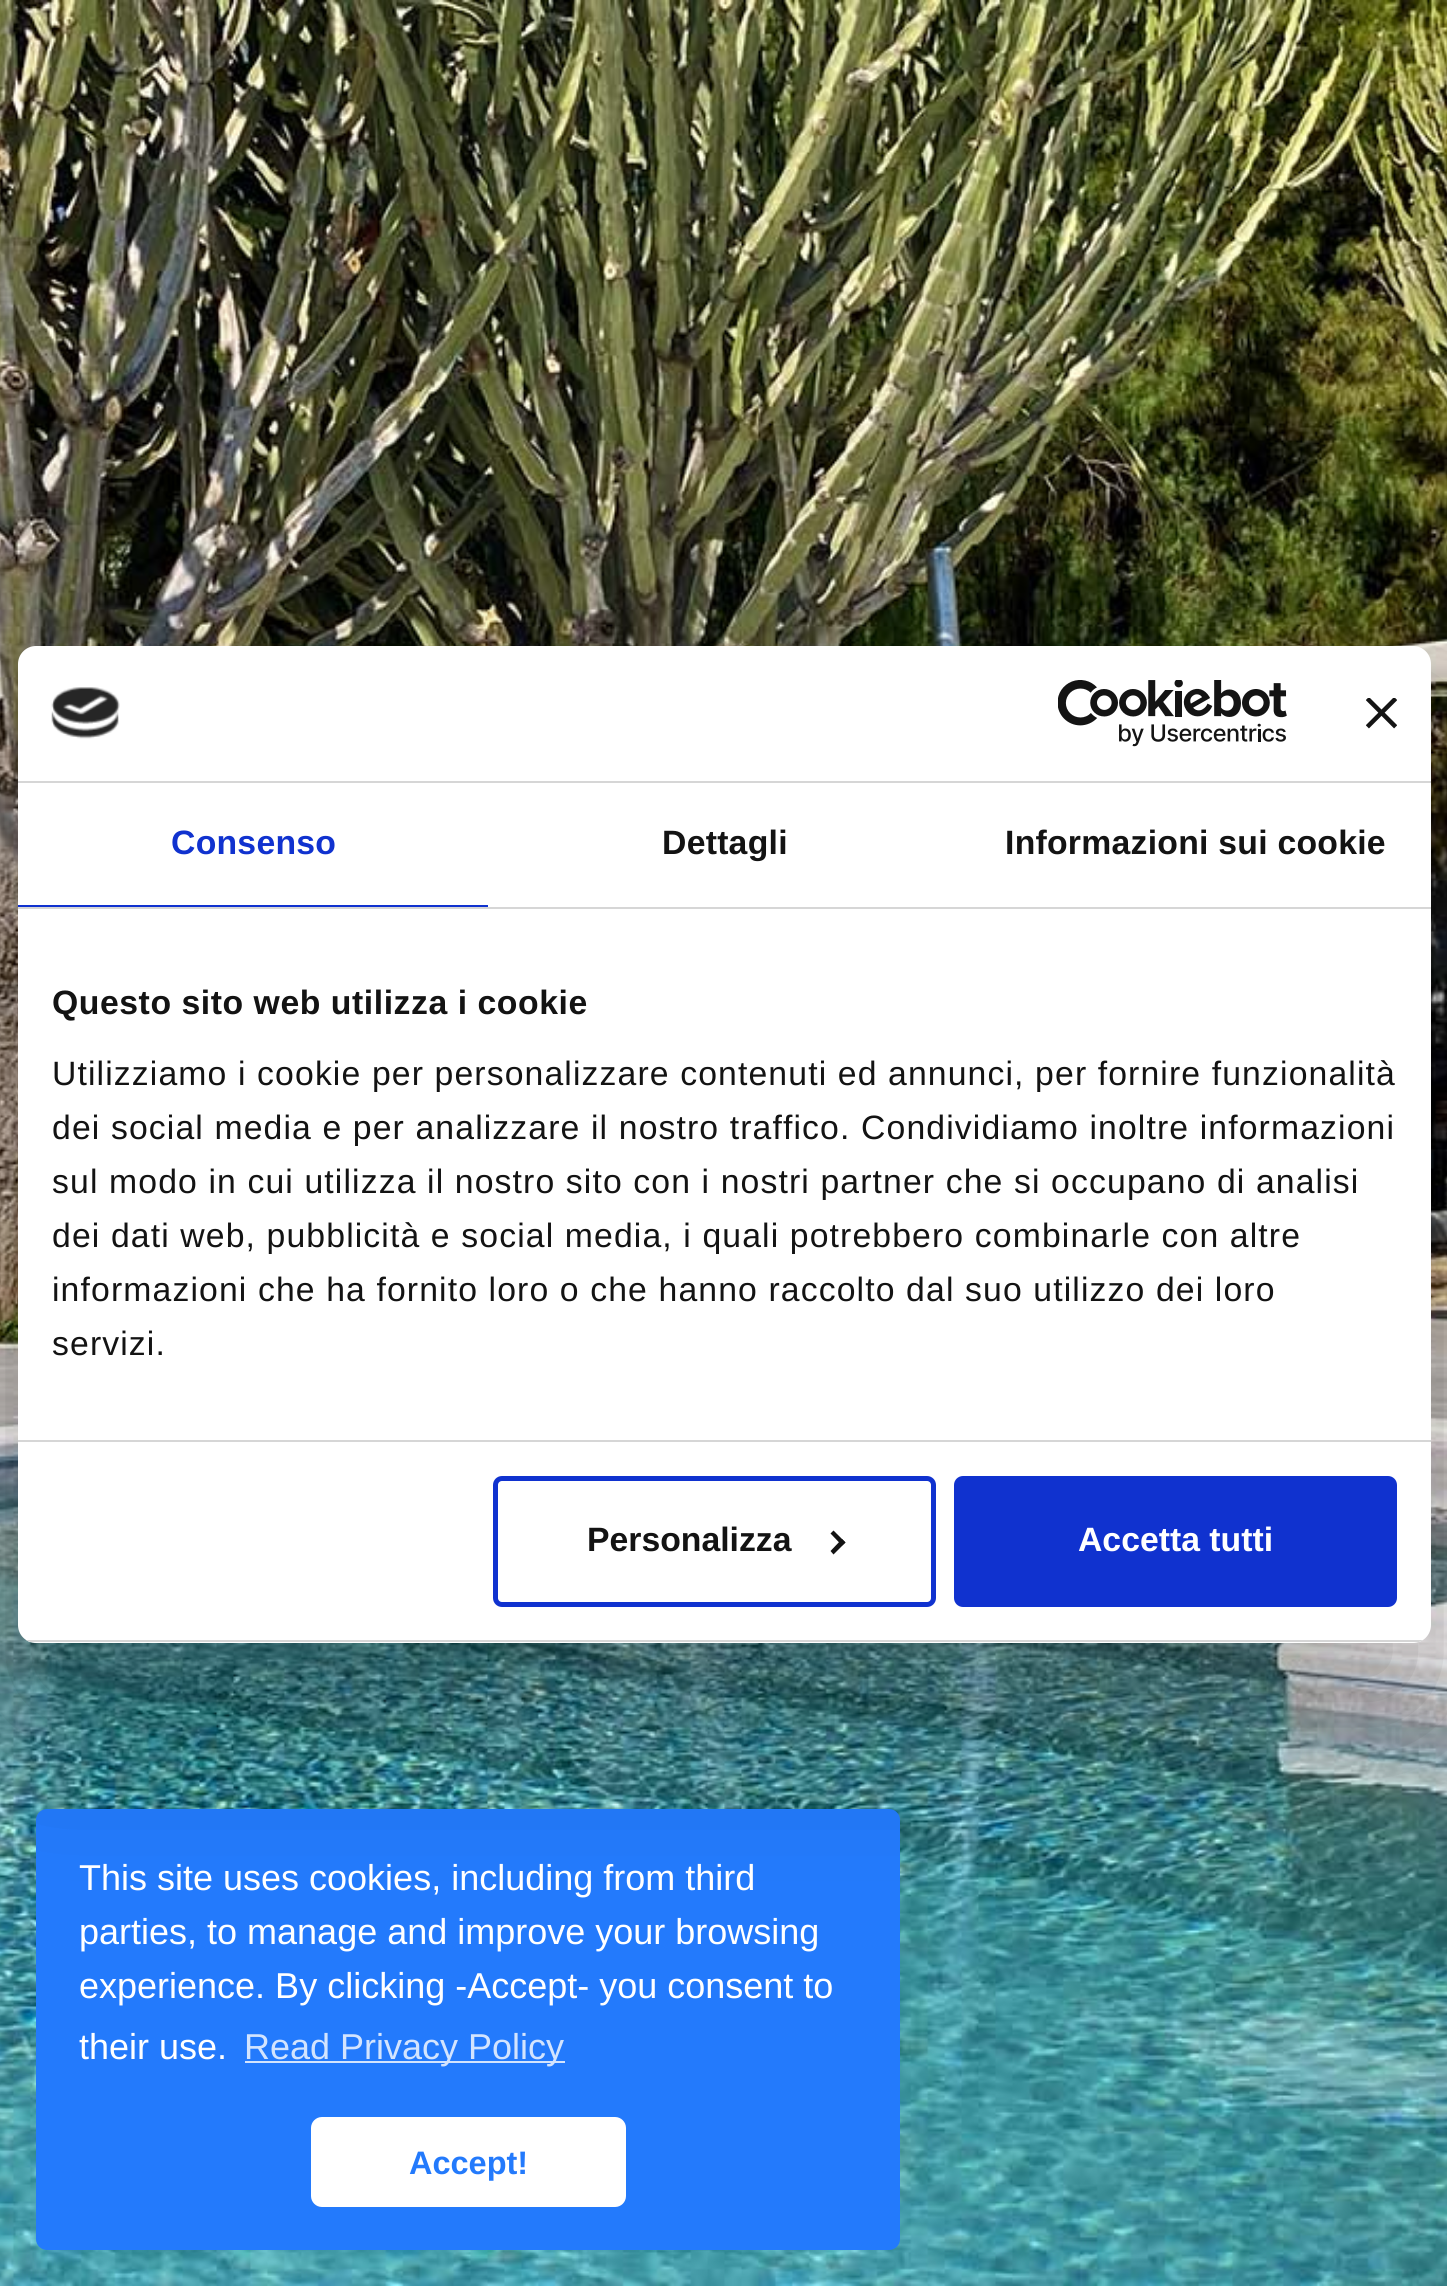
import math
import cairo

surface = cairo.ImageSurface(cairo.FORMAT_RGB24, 1447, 2286)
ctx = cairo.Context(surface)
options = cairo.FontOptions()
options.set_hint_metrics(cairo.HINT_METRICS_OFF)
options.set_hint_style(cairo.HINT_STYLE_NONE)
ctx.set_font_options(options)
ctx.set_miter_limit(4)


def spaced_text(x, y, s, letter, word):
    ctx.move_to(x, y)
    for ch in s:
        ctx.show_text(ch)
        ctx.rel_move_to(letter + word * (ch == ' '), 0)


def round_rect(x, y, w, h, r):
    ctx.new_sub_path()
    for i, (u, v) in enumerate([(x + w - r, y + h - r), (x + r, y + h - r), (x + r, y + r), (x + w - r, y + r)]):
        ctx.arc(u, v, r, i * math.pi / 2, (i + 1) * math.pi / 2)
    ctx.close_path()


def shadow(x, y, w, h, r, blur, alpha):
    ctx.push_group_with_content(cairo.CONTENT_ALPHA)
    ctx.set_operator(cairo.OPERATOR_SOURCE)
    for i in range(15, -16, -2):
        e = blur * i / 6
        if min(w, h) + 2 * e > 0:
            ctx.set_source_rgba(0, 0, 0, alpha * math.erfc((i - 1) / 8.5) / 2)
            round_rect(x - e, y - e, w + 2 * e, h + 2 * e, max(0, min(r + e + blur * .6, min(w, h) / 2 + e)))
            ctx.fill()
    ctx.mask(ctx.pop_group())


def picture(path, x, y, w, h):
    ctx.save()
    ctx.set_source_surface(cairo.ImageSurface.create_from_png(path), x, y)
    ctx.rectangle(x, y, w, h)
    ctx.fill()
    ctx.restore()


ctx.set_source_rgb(1, 1, 1)
ctx.paint()
picture("img1.png", 0, 0, 1447, 2286)
ctx.set_source_rgb(0.137, 0.478, 0.988)
round_rect(36, 1809, 864, 441, 11)
ctx.fill()
ctx.set_source_rgb(0, 0, 0)
shadow(18, 718, 1413, 997, 18, 76.5, 0.3)
ctx.set_source_rgb(1, 1, 1)
round_rect(18, 646, 1413, 997, 18)
ctx.fill()
ctx.set_source_rgb(0.839, 0.839, 0.839)
ctx.rectangle(18, 781, 1413, 2)
ctx.fill()
picture("img2.png", 51, 687, 69, 52)
picture("img3.png", 1058, 680, 229, 67)
picture("img4.png", 1366, 698, 31, 31)
ctx.rectangle(18, 907, 1413, 2)
ctx.fill()
ctx.set_source_rgb(0.063, 0.196, 0.812)
ctx.rectangle(18, 905, 470, 2)
ctx.fill()
ctx.select_font_face("Liberation Sans", cairo.FONT_SLANT_NORMAL, cairo.FONT_WEIGHT_BOLD)
ctx.set_font_size(33.75)
spaced_text(171, 854, "Consenso", 0.25, 0)
ctx.set_source_rgb(0.078, 0.078, 0.078)
spaced_text(662, 854, "Dettagli", 0.25, 0)
spaced_text(1005, 854, "Informazioni sui cookie", 0.25, 0)
ctx.set_source_rgb(0.839, 0.839, 0.839)
ctx.rectangle(18, 1440, 1413, 2)
ctx.fill()
ctx.set_source_rgb(0.078, 0.078, 0.078)
spaced_text(52, 1014, "Questo sito web utilizza i cookie", 0.55, 0)
ctx.select_font_face("Liberation Sans")
spaced_text(52, 1085, "Utilizziamo i cookie per personalizzare contenuti ed annunci, per fornire funzionalità", 1.12, 0)
spaced_text(52, 1139, "dei social media e per analizzare il nostro traffico. Condividiamo inoltre informazioni", 1.12, 0)
spaced_text(52, 1193, "sul modo in cui utilizza il nostro sito con i nostri partner che si occupano di analisi", 1.12, 0)
spaced_text(52, 1247, "dei dati web, pubblicità e social media, i quali potrebbero combinarle con altre", 1.12, 0)
spaced_text(52, 1301, "informazioni che ha fornito loro o che hanno raccolto dal suo utilizzo dei loro", 1.12, 0)
spaced_text(52, 1355, "servizi.", 1.12, 0)
ctx.save()
round_rect(18, 646, 1413, 997, 18)
ctx.clip()
ctx.set_source_rgb(0.839, 0.839, 0.839)
ctx.rectangle(18, 1640, 1413, 2)
ctx.fill()
ctx.restore()
round_rect(495.5, 1478.5, 438, 126, 6.5)
ctx.set_source_rgb(0.063, 0.196, 0.812)
ctx.set_line_width(5)
ctx.stroke()
ctx.select_font_face("Liberation Sans", cairo.FONT_SLANT_NORMAL, cairo.FONT_WEIGHT_BOLD)
ctx.set_source_rgb(0.078, 0.078, 0.078)
ctx.move_to(587, 1551)
ctx.show_text("Personalizza")
ctx.new_path()
ctx.move_to(833.5, 1530.5)
ctx.line_to(845.5, 1542.5)
ctx.line_to(842, 1545.5)
ctx.line_to(830.5, 1533.5)
ctx.close_path()
ctx.fill()
ctx.new_path()
ctx.move_to(842, 1539)
ctx.line_to(845.5, 1542.5)
ctx.line_to(833.5, 1554.5)
ctx.line_to(830.5, 1551)
ctx.close_path()
ctx.fill()
ctx.set_source_rgb(0.063, 0.196, 0.812)
round_rect(956.5, 1478.5, 438, 126, 6.5)
ctx.fill_preserve()
ctx.stroke()
ctx.set_source_rgb(1, 1, 1)
ctx.move_to(1078, 1551)
ctx.show_text("Accetta tutti")
ctx.select_font_face("Liberation Sans")
ctx.set_font_size(36)
ctx.move_to(79, 1890)
ctx.show_text("This site uses cookies, including from third")
ctx.move_to(79, 1944)
ctx.show_text("parties, to manage and improve your browsing")
ctx.move_to(79, 1998)
ctx.show_text("experience. By clicking -Accept- you consent to")
ctx.move_to(79, 2059)
ctx.show_text("their use.")
ctx.set_source_rgb(0.827, 0.894, 0.996)
ctx.rectangle(245, 2061, 320, 2)
ctx.fill()
ctx.move_to(244, 2059)
ctx.show_text("Read Privacy Policy")
ctx.set_source_rgb(1, 1, 1)
round_rect(311, 2117, 315, 90, 11)
ctx.fill()
ctx.select_font_face("Liberation Sans", cairo.FONT_SLANT_NORMAL, cairo.FONT_WEIGHT_BOLD)
ctx.set_font_size(32.5)
ctx.set_source_rgb(0.137, 0.478, 0.988)
ctx.move_to(409, 2174)
ctx.show_text("Accept!")
surface.write_to_png("page.png")
